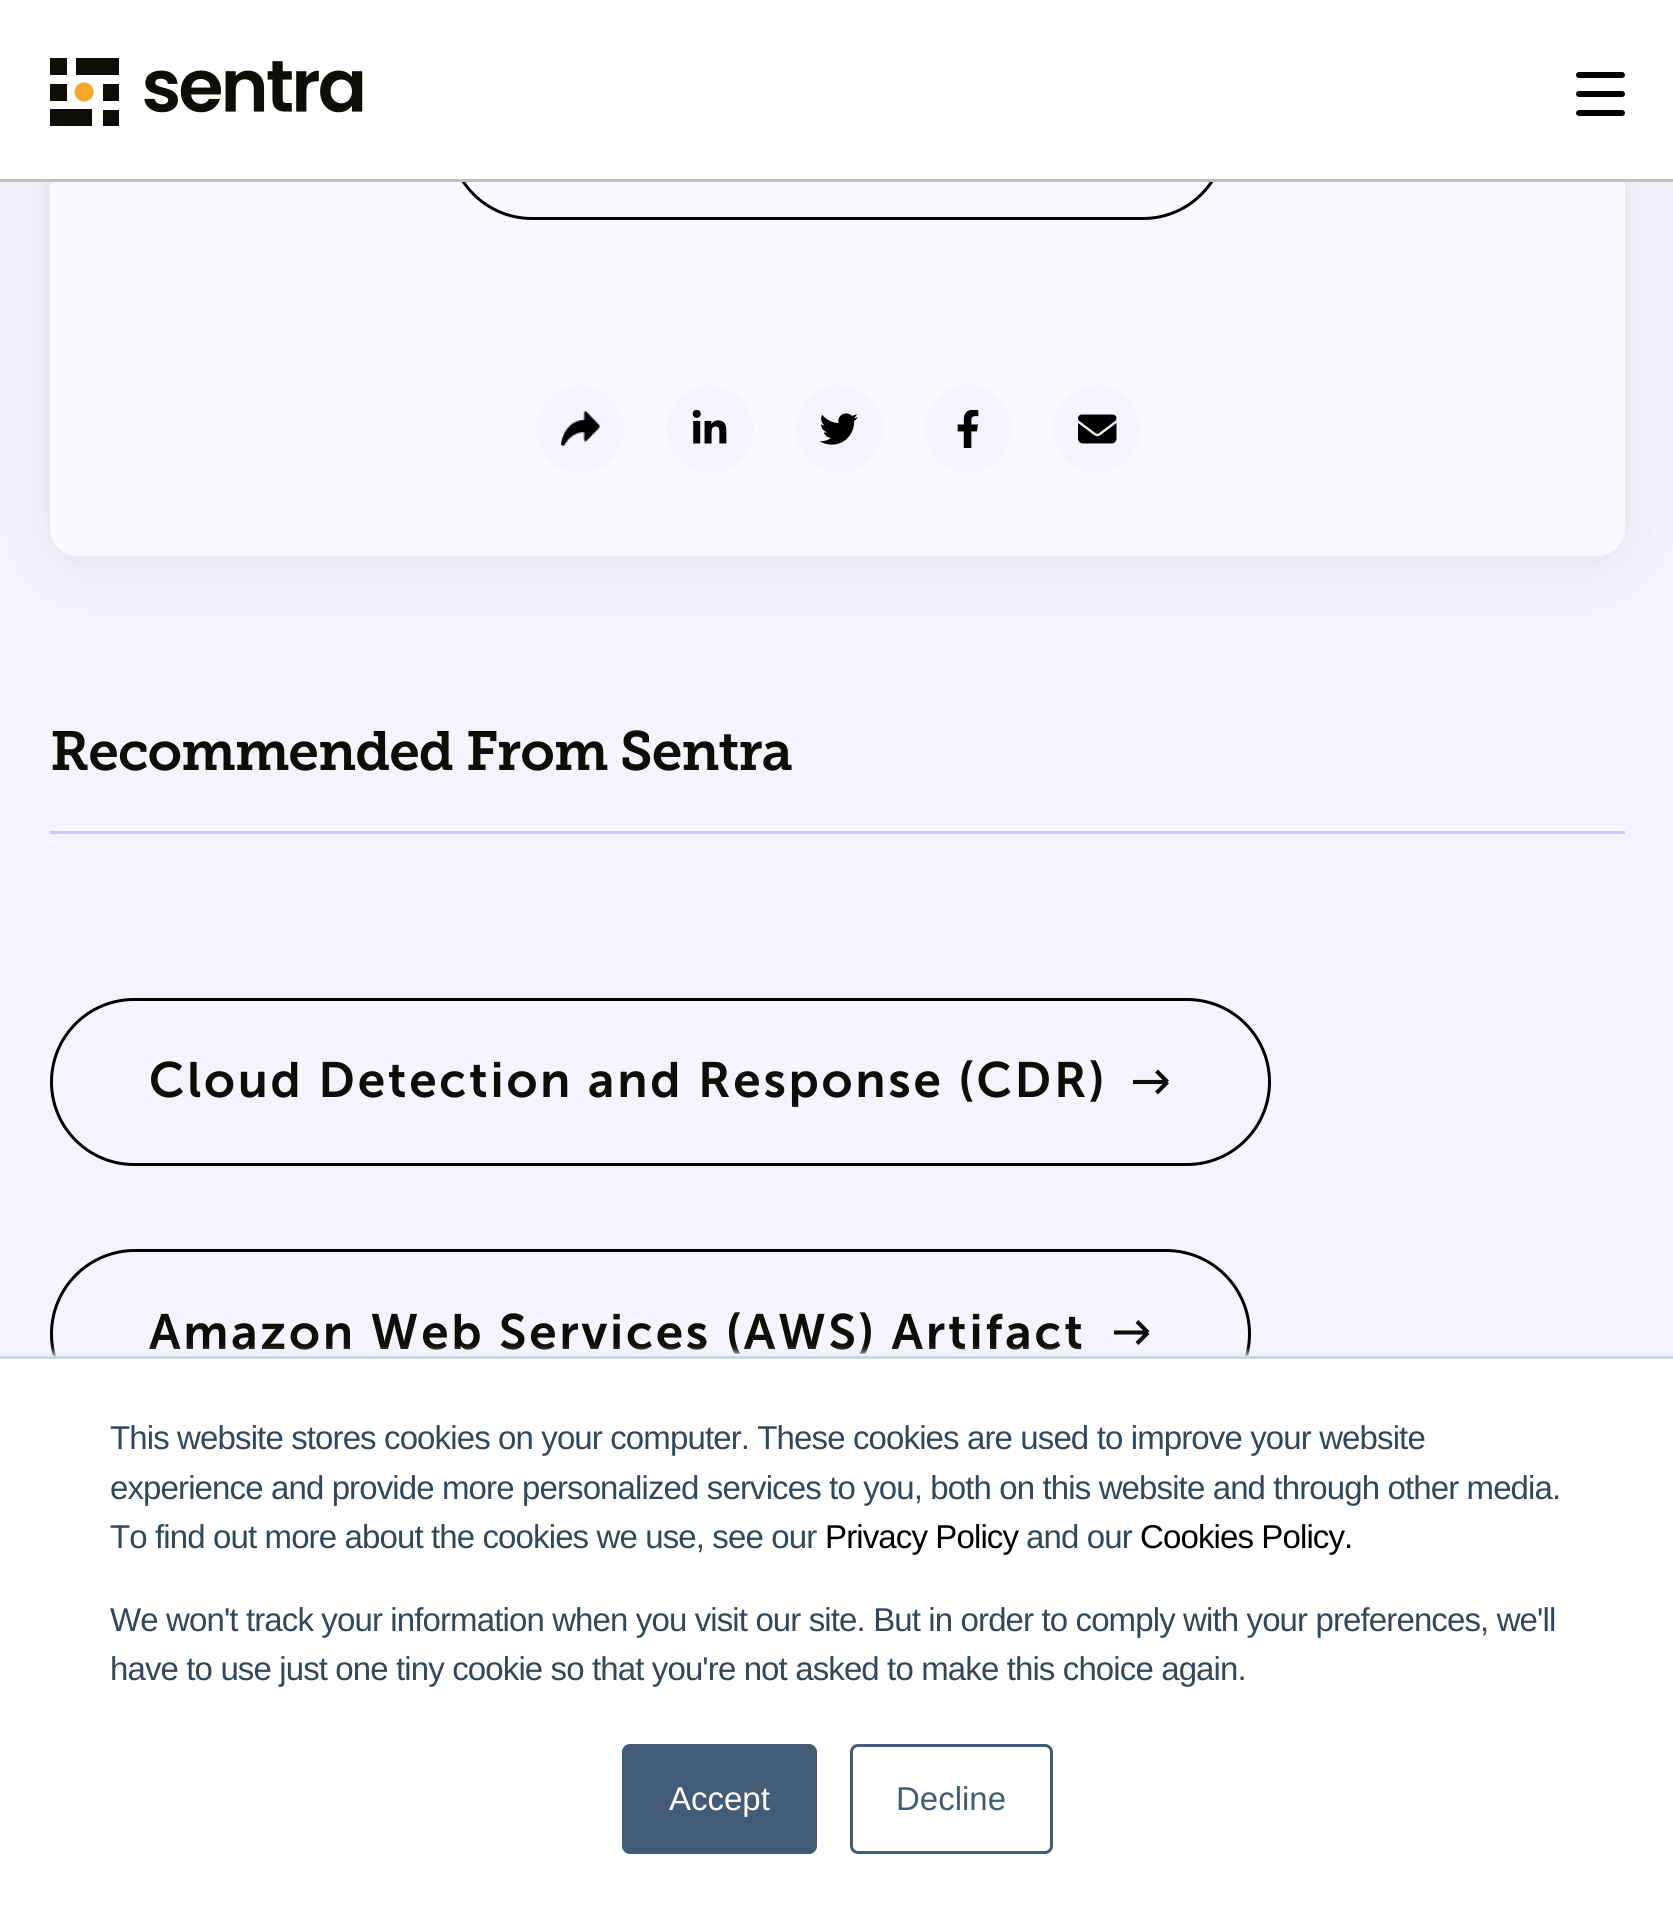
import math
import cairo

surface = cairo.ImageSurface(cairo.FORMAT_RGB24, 1673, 1924)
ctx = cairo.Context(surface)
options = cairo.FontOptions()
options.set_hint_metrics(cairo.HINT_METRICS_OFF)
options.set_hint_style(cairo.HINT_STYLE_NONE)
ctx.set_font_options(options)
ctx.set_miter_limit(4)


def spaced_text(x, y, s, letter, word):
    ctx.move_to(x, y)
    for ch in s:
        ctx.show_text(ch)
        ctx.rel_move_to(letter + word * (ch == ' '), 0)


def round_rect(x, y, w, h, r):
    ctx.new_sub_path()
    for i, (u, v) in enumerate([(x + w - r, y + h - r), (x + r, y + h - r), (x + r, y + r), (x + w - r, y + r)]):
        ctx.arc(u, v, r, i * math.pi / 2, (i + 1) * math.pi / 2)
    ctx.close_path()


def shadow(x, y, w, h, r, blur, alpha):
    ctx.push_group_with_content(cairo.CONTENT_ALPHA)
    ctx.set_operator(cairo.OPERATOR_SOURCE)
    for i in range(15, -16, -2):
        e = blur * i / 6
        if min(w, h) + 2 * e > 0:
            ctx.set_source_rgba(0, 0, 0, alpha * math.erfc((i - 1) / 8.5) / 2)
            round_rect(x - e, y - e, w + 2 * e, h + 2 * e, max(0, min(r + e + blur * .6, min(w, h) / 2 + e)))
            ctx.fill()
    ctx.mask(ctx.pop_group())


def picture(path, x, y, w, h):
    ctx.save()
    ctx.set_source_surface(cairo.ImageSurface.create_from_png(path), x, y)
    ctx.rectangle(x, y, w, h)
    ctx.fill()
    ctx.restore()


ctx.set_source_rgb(0.961, 0.953, 1)
ctx.paint()
ctx.save()
ctx.set_fill_rule(cairo.FILL_RULE_EVEN_ODD)
ctx.new_path()
ctx.move_to(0, 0)
ctx.line_to(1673, 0)
ctx.line_to(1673, 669)
ctx.line_to(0, 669)
ctx.close_path()
ctx.move_to(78, -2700)
ctx.line_to(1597, -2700)
ctx.curve_to(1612.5, -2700, 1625, -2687.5, 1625, -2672)
ctx.line_to(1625, 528)
ctx.curve_to(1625, 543.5, 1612.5, 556, 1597, 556)
ctx.line_to(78, 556)
ctx.curve_to(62.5, 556, 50, 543.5, 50, 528)
ctx.line_to(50, -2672)
ctx.curve_to(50, -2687.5, 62.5, -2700, 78, -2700)
ctx.close_path()
ctx.clip()
ctx.set_source_rgb(0, 0, 0)
shadow(50, -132, 1575, 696, 28, 34.5, 0.08)
ctx.restore()
ctx.set_source_rgba(1, 1, 1, 0.4)
round_rect(50, -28, 1575, 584, 28)
ctx.fill()
round_rect(449.5, 53.5, 776, 165, 82.5)
ctx.set_source_rgb(0, 0, 0)
ctx.set_line_width(3)
ctx.stroke()
ctx.set_source_rgb(1, 1, 1)
ctx.rectangle(0, 0, 1673, 179)
ctx.fill()
picture("img1.png", 50, 58, 313, 68)
ctx.set_source_rgb(0, 0, 0)
round_rect(1576, 72, 49, 6, 3)
ctx.fill()
round_rect(1576, 91, 49, 6, 3)
ctx.fill()
round_rect(1576, 110, 49, 6, 3)
ctx.fill()
ctx.set_source_rgb(0.749, 0.749, 0.749)
ctx.rectangle(0, 179, 1673, 3)
ctx.fill()
ctx.set_source_rgb(0.961, 0.953, 1)
ctx.arc(580, 429, 44, 0, 2 * math.pi)
ctx.fill()
picture("img2.png", 561, 410, 39, 37)
ctx.arc(710, 429, 44, 0, 2 * math.pi)
ctx.fill()
picture("img3.png", 692, 410, 35, 34)
ctx.arc(839, 429, 44, 0, 2 * math.pi)
ctx.fill()
picture("img4.png", 820, 413, 38, 32)
ctx.arc(968, 429, 44, 0, 2 * math.pi)
ctx.fill()
picture("img5.png", 957, 410, 22, 38)
ctx.arc(1097, 429, 44, 0, 2 * math.pi)
ctx.fill()
picture("img6.png", 1078, 414, 39, 30)
ctx.set_source_rgb(0.82, 0.784, 1)
ctx.rectangle(50, 831, 1575, 3)
ctx.fill()
ctx.select_font_face("Museo Slab SemiBold")
ctx.set_font_size(55)
ctx.set_source_rgb(0.055, 0.051, 0.027)
spaced_text(50, 770, "Recommended From Sentra", -1.1, 0)
round_rect(51.5, 999.5, 1218, 165, 82.5)
ctx.set_source_rgb(0, 0, 0)
ctx.stroke()
ctx.select_font_face("Museo Sans SemiBold")
ctx.set_font_size(49.5)
ctx.set_source_rgb(0.055, 0.051, 0.027)
spaced_text(149, 1097, "Cloud Detection and Response (CDR)", 2.75, 0)
ctx.new_path()
ctx.move_to(1167.5, 1082)
ctx.line_to(1156.5, 1071)
ctx.move_to(1167.5, 1082)
ctx.line_to(1156.5, 1093)
ctx.move_to(1167.5, 1082)
ctx.line_to(1133, 1082)
ctx.set_line_width(4.1)
ctx.stroke()
round_rect(51.5, 1250.5, 1198, 167, 83.5)
ctx.set_source_rgb(0, 0, 0)
ctx.set_line_width(3)
ctx.stroke()
ctx.set_source_rgb(0.055, 0.051, 0.027)
spaced_text(149, 1349, "Amazon Web Services (AWS) Artifact", 2.75, 0)
ctx.new_path()
ctx.move_to(1148, 1332.5)
ctx.line_to(1137, 1321.5)
ctx.move_to(1148, 1332.5)
ctx.line_to(1137, 1343.5)
ctx.move_to(1148, 1332.5)
ctx.line_to(1114, 1332.5)
ctx.set_line_width(4.1)
ctx.stroke()
ctx.set_source_rgb(0.918, 0.941, 0.965)
shadow(0, 1353, 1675, 569, 0, 4, 1)
ctx.set_source_rgb(1, 1, 1)
ctx.rectangle(0, 1359, 1673, 565)
ctx.fill()
ctx.set_source_rgb(0.796, 0.839, 0.886)
ctx.rectangle(0, 1356, 1673, 3)
ctx.fill()
ctx.select_font_face("Liberation Sans")
ctx.set_font_size(33)
ctx.set_source_rgb(0.2, 0.278, 0.357)
spaced_text(110, 1449, "This website stores cookies on your computer. These cookies are used to improve your website", -0.88, 0)
spaced_text(110, 1499, "experience and provide more personalized services to you, both on this website and through other media.", -0.88, 0)
spaced_text(110, 1548, "To find out more about the cookies we use, see our", -0.88, 0)
ctx.set_source_rgb(0, 0, 0)
spaced_text(825, 1548, "Privacy Policy", -0.88, 0)
ctx.set_source_rgb(0.2, 0.278, 0.357)
spaced_text(1026, 1548, "and our", -0.88, 0)
ctx.set_source_rgb(0, 0, 0)
spaced_text(1140, 1548, "Cookies Policy.", -0.88, 0)
ctx.set_source_rgb(0.2, 0.278, 0.357)
spaced_text(110, 1631, "We won't track your information when you visit our site. But in order to comply with your preferences, we'll", -0.88, 0)
spaced_text(110, 1680, "have to use just one tiny cookie so that you're not asked to make this choice again.", -0.88, 0)
ctx.set_source_rgb(0.259, 0.357, 0.463)
round_rect(623.5, 1745.5, 192, 107, 6.5)
ctx.fill_preserve()
ctx.set_line_width(3)
ctx.stroke()
ctx.set_source_rgb(1, 1, 1)
ctx.move_to(669, 1810)
ctx.show_text("Accept")
round_rect(851.5, 1745.5, 200, 107, 6.5)
ctx.set_source_rgb(0.259, 0.357, 0.463)
ctx.stroke()
ctx.move_to(896, 1810)
ctx.show_text("Decline")
surface.write_to_png("page.png")
